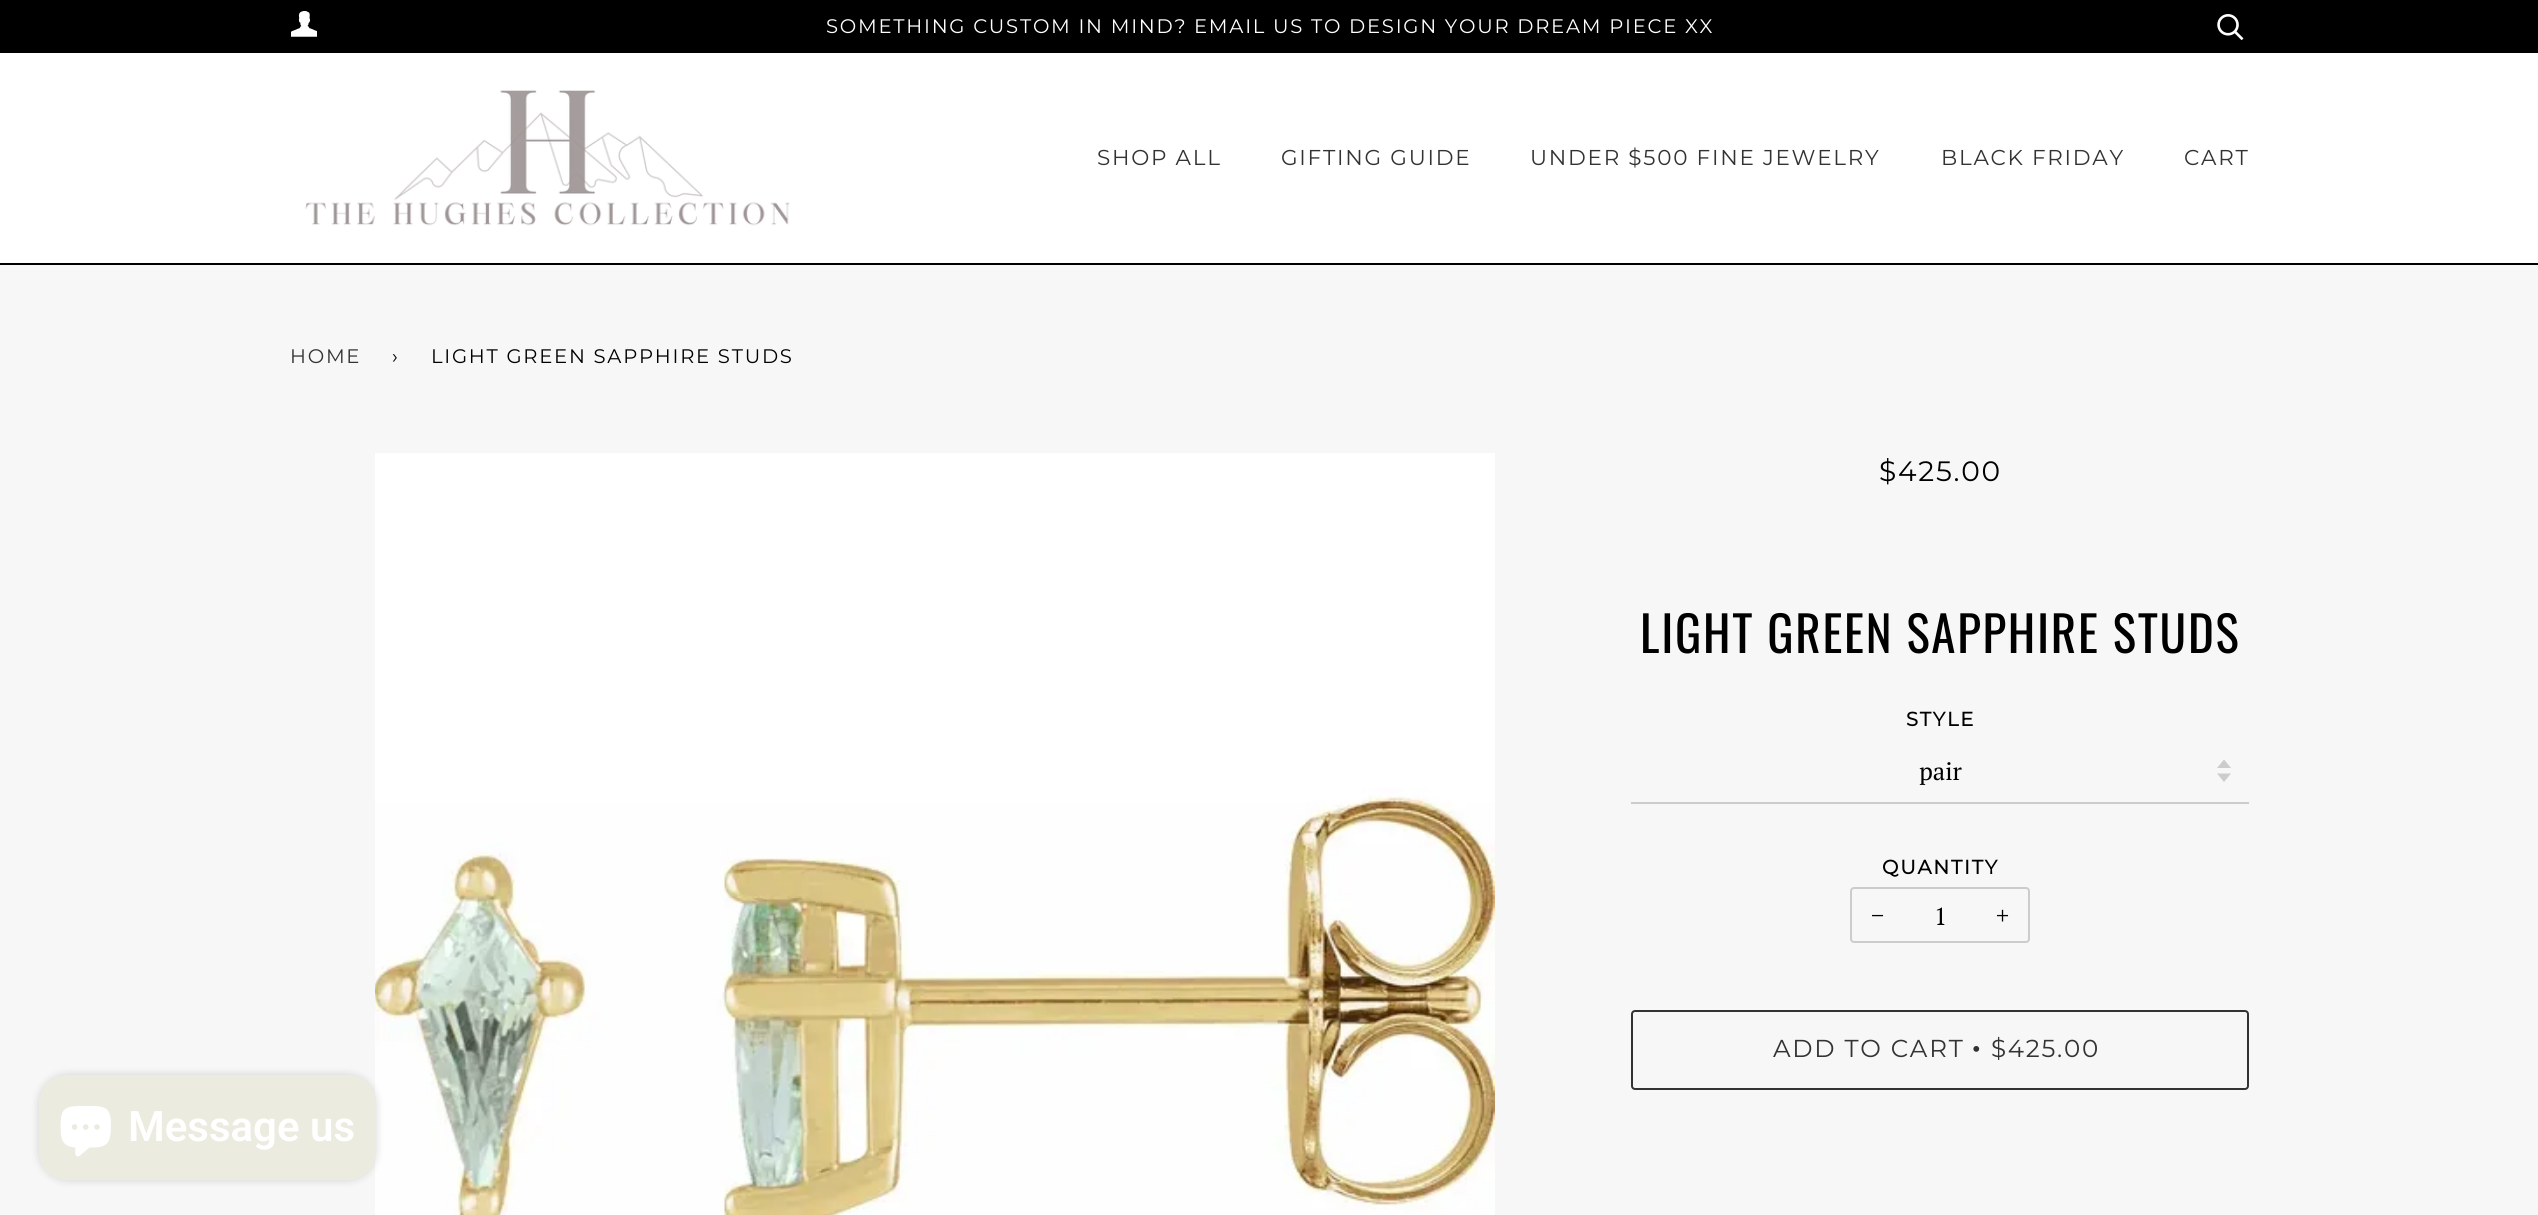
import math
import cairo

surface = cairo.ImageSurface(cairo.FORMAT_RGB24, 2538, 1215)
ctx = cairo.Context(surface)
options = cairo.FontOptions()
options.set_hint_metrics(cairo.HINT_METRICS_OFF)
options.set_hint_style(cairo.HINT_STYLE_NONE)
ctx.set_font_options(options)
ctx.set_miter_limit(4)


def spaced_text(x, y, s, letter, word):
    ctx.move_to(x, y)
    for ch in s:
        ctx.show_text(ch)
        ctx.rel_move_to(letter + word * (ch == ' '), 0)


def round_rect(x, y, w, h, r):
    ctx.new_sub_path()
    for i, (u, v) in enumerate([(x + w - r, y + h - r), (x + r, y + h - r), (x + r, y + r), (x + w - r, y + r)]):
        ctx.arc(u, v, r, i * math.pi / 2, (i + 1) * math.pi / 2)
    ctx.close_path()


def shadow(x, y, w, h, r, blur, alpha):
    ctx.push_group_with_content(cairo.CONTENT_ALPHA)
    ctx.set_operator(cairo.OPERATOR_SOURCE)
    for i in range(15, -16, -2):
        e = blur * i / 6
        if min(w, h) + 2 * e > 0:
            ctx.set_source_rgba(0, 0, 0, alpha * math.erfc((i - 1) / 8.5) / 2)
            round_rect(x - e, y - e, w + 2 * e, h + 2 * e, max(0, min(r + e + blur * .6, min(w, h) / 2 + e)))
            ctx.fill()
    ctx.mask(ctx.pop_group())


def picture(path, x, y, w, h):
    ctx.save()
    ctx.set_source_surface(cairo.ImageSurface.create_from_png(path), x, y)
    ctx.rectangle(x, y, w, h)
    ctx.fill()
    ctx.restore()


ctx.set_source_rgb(1, 1, 1)
ctx.paint()
ctx.set_source_rgb(0, 0, 0)
ctx.rectangle(0, 0, 2538, 53)
ctx.fill()
picture("img1.png", 291, 11, 26, 26)
ctx.select_font_face("Montserrat Thin")
ctx.set_font_size(19.6)
ctx.set_source_rgb(1, 1, 1)
spaced_text(826, 33, "SOMETHING CUSTOM IN MIND?", 1.75, 0)
spaced_text(1194, 33, "EMAIL US TO DESIGN YOUR DREAM PIECE XX", 1.75, 0)
picture("img2.png", 2217, 14, 27, 26)
ctx.set_source_rgb(0, 0, 0)
ctx.rectangle(0, 263, 2538, 2)
ctx.fill()
picture("img3.png", 305, 90, 485, 136)
ctx.set_font_size(21.5)
ctx.set_source_rgb(0.2, 0.2, 0.2)
spaced_text(1097, 165, "SHOP ALL", 1.75, 0)
spaced_text(1281, 165, "GIFTING GUIDE", 1.75, 0)
spaced_text(1530, 165, "UNDER $500 FINE JEWELRY", 1.75, 0)
spaced_text(1941, 165, "BLACK FRIDAY", 1.75, 0)
spaced_text(2184, 165, "CART", 1.75, 0)
ctx.set_source_rgb(0.965, 0.965, 0.965)
ctx.rectangle(0, 265, 2538, 950)
ctx.fill()
ctx.set_font_size(19.6)
ctx.set_source_rgb(0.2, 0.2, 0.2)
spaced_text(290, 363, "HOME", 1.75, 0)
ctx.set_source_rgb(0, 0, 0)
spaced_text(392, 363, "›", 1.75, 0)
spaced_text(431, 363, "LIGHT GREEN SAPPHIRE STUDS", 1.75, 0)
picture("img4.png", 375, 453, 1120, 762)
ctx.set_font_size(28)
spaced_text(1879, 481, "$425.00", 1.75, 0)
ctx.select_font_face("Oswald")
ctx.set_font_size(49)
spaced_text(1640, 653, "LIGHT GREEN SAPPHIRE STUDS", 1.75, 0)
ctx.select_font_face("Montserrat", cairo.FONT_SLANT_NORMAL, cairo.FONT_WEIGHT_BOLD)
ctx.set_font_size(19.6)
spaced_text(1906, 726, "STYLE", 1.75, 0)
ctx.set_source_rgb(0.8, 0.8, 0.8)
ctx.new_path()
ctx.move_to(2217, 773.5)
ctx.line_to(2224, 782)
ctx.line_to(2231, 773.5)
ctx.close_path()
ctx.move_to(2224, 759.5)
ctx.line_to(2217, 768)
ctx.line_to(2231, 768)
ctx.close_path()
ctx.fill()
ctx.rectangle(1631, 802, 618, 2)
ctx.fill()
ctx.select_font_face("PT Serif")
ctx.set_font_size(24.5)
ctx.set_source_rgb(0, 0, 0)
ctx.move_to(1919, 780)
ctx.show_text("pair")
ctx.select_font_face("Montserrat", cairo.FONT_SLANT_NORMAL, cairo.FONT_WEIGHT_BOLD)
ctx.set_font_size(19.6)
spaced_text(1882, 874, "QUANTITY", 1.75, 0)
round_rect(1851, 888, 178, 54, 3)
ctx.set_source_rgb(0.8, 0.8, 0.8)
ctx.stroke()
ctx.select_font_face("PT Serif")
ctx.set_font_size(24.5)
ctx.set_source_rgb(0, 0, 0)
ctx.move_to(1871, 924)
ctx.show_text("−")
ctx.move_to(1934, 925)
ctx.show_text("1")
ctx.move_to(1996, 924)
ctx.show_text("+")
round_rect(1632, 1011, 616, 78, 3)
ctx.set_source_rgb(0.2, 0.2, 0.2)
ctx.stroke()
ctx.select_font_face("Montserrat Thin")
spaced_text(1773, 1057, "ADD TO CART", 1.75, 0)
ctx.select_font_face("Liberation Serif")
spaced_text(1972, 1057, "•", 1.75, 0)
ctx.select_font_face("Montserrat Thin")
spaced_text(1991, 1057, "$425.00", 1.75, 0)
ctx.set_source_rgb(0, 0, 0)
shadow(39, 1075, 337, 105, 28, 4.5, 0.15)
ctx.set_source_rgb(0.918, 0.918, 0.875)
round_rect(39, 1075, 337, 105, 28)
ctx.fill()
picture("img5.png", 60, 1106, 51, 51)
ctx.select_font_face("Roboto SemiBold")
ctx.set_font_size(42)
ctx.set_source_rgb(1, 1, 1)
ctx.move_to(128, 1141)
ctx.show_text("Message us")
surface.write_to_png("page.png")
